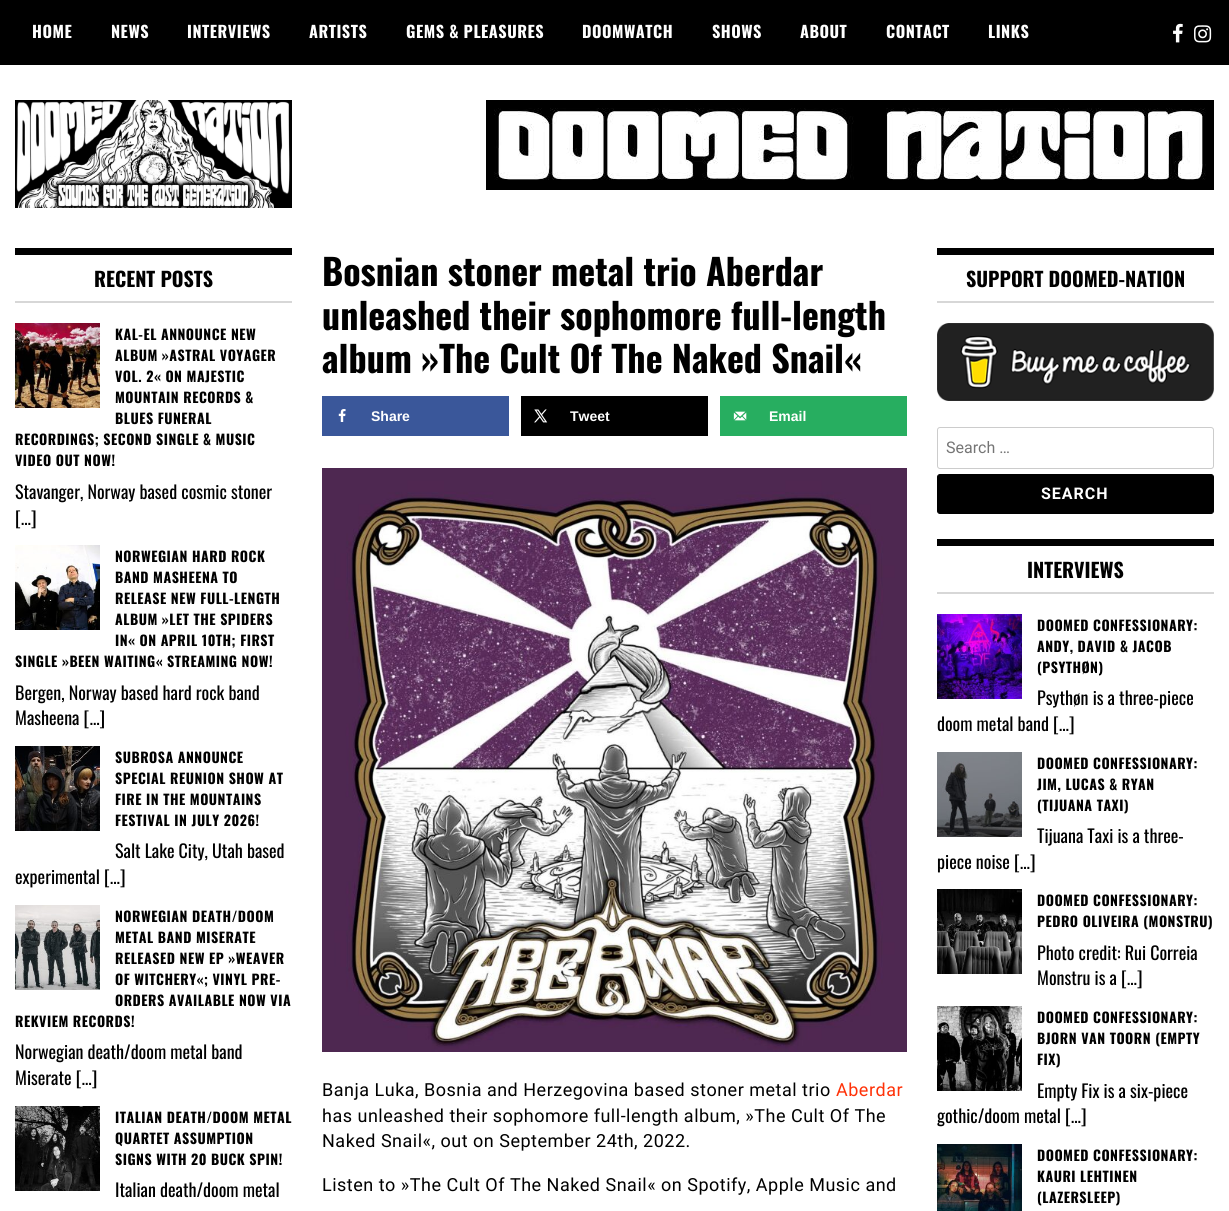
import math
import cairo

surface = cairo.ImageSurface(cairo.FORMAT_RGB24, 1229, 1211)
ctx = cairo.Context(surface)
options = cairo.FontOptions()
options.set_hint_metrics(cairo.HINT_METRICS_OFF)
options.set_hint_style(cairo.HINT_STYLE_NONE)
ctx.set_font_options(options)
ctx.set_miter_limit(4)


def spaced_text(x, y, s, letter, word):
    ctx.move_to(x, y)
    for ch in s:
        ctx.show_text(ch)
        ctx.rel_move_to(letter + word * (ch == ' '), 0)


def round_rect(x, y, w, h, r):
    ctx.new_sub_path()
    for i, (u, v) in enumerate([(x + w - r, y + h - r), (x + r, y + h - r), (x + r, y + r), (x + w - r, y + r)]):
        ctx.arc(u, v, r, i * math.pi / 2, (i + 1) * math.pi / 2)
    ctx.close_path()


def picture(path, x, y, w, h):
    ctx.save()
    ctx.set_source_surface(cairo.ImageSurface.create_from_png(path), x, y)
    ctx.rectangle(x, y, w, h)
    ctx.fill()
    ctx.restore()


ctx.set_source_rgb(1, 1, 1)
ctx.paint()
ctx.set_source_rgb(0, 0, 0)
ctx.rectangle(0, 0, 1229, 65)
ctx.fill()
ctx.select_font_face("Oswald", cairo.FONT_SLANT_NORMAL, cairo.FONT_WEIGHT_BOLD)
ctx.set_font_size(16.25)
ctx.set_source_rgb(1, 1, 1)
spaced_text(32, 38, "HOME", 0.5, 0)
spaced_text(111, 38, "NEWS", 0.5, 0)
spaced_text(187, 38, "INTERVIEWS", 0.5, 0)
spaced_text(309, 38, "ARTISTS", 0.5, 0)
spaced_text(406, 38, "GEMS & PLEASURES", 0.5, 0)
spaced_text(582, 38, "DOOMWATCH", 0.5, 0)
spaced_text(712, 38, "SHOWS", 0.5, 0)
spaced_text(800, 38, "ABOUT", 0.5, 0)
spaced_text(886, 38, "CONTACT", 0.5, 0)
spaced_text(988, 38, "LINKS", 0.5, 0)
picture("img1.png", 1173, 23, 10, 20)
picture("img2.png", 1194, 25, 18, 18)
picture("img3.png", 15, 100, 277, 108)
picture("img4.png", 486, 100, 728, 90)
ctx.set_source_rgb(0, 0, 0)
ctx.rectangle(15, 248, 277, 7)
ctx.fill()
ctx.set_source_rgb(0.843, 0.843, 0.843)
ctx.rectangle(15, 301, 277, 2)
ctx.fill()
ctx.set_font_size(20)
ctx.set_source_rgb(0, 0, 0)
ctx.move_to(94, 287)
ctx.show_text("RECENT POSTS")
picture("img5.png", 15, 323, 85, 85)
ctx.set_font_size(14)
spaced_text(115, 340, "KAL-EL ANNOUNCE NEW", 0.5, 0)
spaced_text(115, 361, "ALBUM »ASTRAL VOYAGER", 0.5, 0)
spaced_text(115, 382, "VOL. 2« ON MAJESTIC", 0.5, 0)
spaced_text(115, 403, "MOUNTAIN RECORDS &", 0.5, 0)
spaced_text(115, 424, "BLUES FUNERAL", 0.5, 0)
spaced_text(15, 445, "RECORDINGS; SECOND SINGLE & MUSIC", 0.5, 0)
spaced_text(15, 466, "VIDEO OUT NOW!", 0.5, 0)
ctx.select_font_face("Oswald")
ctx.set_font_size(18)
ctx.move_to(15, 499)
ctx.show_text("Stavanger, Norway based cosmic stoner")
ctx.move_to(15, 525)
ctx.show_text("[…]")
picture("img6.png", 15, 545, 85, 85)
ctx.select_font_face("Oswald", cairo.FONT_SLANT_NORMAL, cairo.FONT_WEIGHT_BOLD)
ctx.set_font_size(14)
spaced_text(115, 562, "NORWEGIAN HARD ROCK", 0.5, 0)
spaced_text(115, 583, "BAND MASHEENA TO", 0.5, 0)
spaced_text(115, 604, "RELEASE NEW FULL-LENGTH", 0.5, 0)
spaced_text(115, 625, "ALBUM »LET THE SPIDERS", 0.5, 0)
spaced_text(115, 646, "IN« ON APRIL 10TH; FIRST", 0.5, 0)
spaced_text(15, 667, "SINGLE »BEEN WAITING« STREAMING NOW!", 0.5, 0)
ctx.select_font_face("Oswald")
ctx.set_font_size(18)
ctx.move_to(15, 700)
ctx.show_text("Bergen, Norway based hard rock band")
ctx.move_to(15, 725)
ctx.show_text("Masheena […]")
picture("img7.png", 15, 746, 85, 85)
ctx.select_font_face("Oswald", cairo.FONT_SLANT_NORMAL, cairo.FONT_WEIGHT_BOLD)
ctx.set_font_size(14)
spaced_text(115, 763, "SUBROSA ANNOUNCE", 0.5, 0)
spaced_text(115, 784, "SPECIAL REUNION SHOW AT", 0.5, 0)
spaced_text(115, 805, "FIRE IN THE MOUNTAINS", 0.5, 0)
spaced_text(115, 826, "FESTIVAL IN JULY 2026!", 0.5, 0)
ctx.select_font_face("Oswald")
ctx.set_font_size(18)
ctx.move_to(115, 858)
ctx.show_text("Salt Lake City, Utah based")
ctx.move_to(15, 884)
ctx.show_text("experimental […]")
picture("img8.png", 15, 905, 85, 85)
ctx.select_font_face("Oswald", cairo.FONT_SLANT_NORMAL, cairo.FONT_WEIGHT_BOLD)
ctx.set_font_size(14)
spaced_text(115, 922, "NORWEGIAN DEATH/DOOM", 0.5, 0)
spaced_text(115, 943, "METAL BAND MISERATE", 0.5, 0)
spaced_text(115, 964, "RELEASED NEW EP »WEAVER", 0.5, 0)
spaced_text(115, 985, "OF WITCHERY«; VINYL PRE-", 0.5, 0)
spaced_text(115, 1006, "ORDERS AVAILABLE NOW VIA", 0.5, 0)
spaced_text(15, 1027, "REKVIEM RECORDS!", 0.5, 0)
ctx.select_font_face("Oswald")
ctx.set_font_size(18)
ctx.move_to(15, 1059)
ctx.show_text("Norwegian death/doom metal band")
ctx.move_to(15, 1085)
ctx.show_text("Miserate […]")
picture("img9.png", 15, 1106, 85, 85)
ctx.select_font_face("Oswald", cairo.FONT_SLANT_NORMAL, cairo.FONT_WEIGHT_BOLD)
ctx.set_font_size(14)
spaced_text(115, 1123, "ITALIAN DEATH/DOOM METAL", 0.5, 0)
spaced_text(115, 1144, "QUARTET ASSUMPTION", 0.5, 0)
spaced_text(115, 1165, "SIGNS WITH 20 BUCK SPIN!", 0.5, 0)
ctx.select_font_face("Oswald")
ctx.set_font_size(18)
ctx.move_to(115, 1197)
ctx.show_text("Italian death/doom metal")
ctx.select_font_face("Oswald", cairo.FONT_SLANT_NORMAL, cairo.FONT_WEIGHT_BOLD)
ctx.set_font_size(36)
ctx.move_to(322, 286)
ctx.show_text("Bosnian stoner metal trio Aberdar")
ctx.move_to(322, 330)
ctx.show_text("unleashed their sophomore full-length")
ctx.move_to(322, 373)
ctx.show_text("album »The Cult Of The Naked Snail«")
ctx.set_source_rgb(0.227, 0.341, 0.604)
ctx.rectangle(322, 396, 187, 40)
ctx.fill()
picture("img10.png", 338, 409, 8, 13)
ctx.select_font_face("Liberation Sans", cairo.FONT_SLANT_NORMAL, cairo.FONT_WEIGHT_BOLD)
ctx.set_font_size(14)
ctx.set_source_rgb(1, 1, 1)
ctx.move_to(371, 421)
ctx.show_text("Share")
ctx.set_source_rgb(0, 0, 0)
ctx.rectangle(521, 396, 187, 40)
ctx.fill()
picture("img11.png", 534, 409, 14, 14)
ctx.set_source_rgb(1, 1, 1)
ctx.move_to(570, 421)
ctx.show_text("Tweet")
ctx.set_source_rgb(0.153, 0.682, 0.376)
ctx.rectangle(720, 396, 187, 40)
ctx.fill()
picture("img12.png", 733, 411, 14, 10)
ctx.set_source_rgb(1, 1, 1)
ctx.move_to(769, 421)
ctx.show_text("Email")
picture("img13.png", 322, 468, 585, 584)
ctx.select_font_face("Roboto")
ctx.set_font_size(18)
ctx.set_source_rgb(0, 0, 0)
spaced_text(322, 1096, "Banja Luka, Bosnia and Herzegovina based stoner metal trio", 0.5, 0)
ctx.set_source_rgb(1, 0.196, 0.035)
spaced_text(836, 1096, "Aberdar", 0.5, 0)
ctx.set_source_rgb(0, 0, 0)
spaced_text(322, 1122, "has unleashed their sophomore full-length album, »The Cult Of The", 0.5, 0)
spaced_text(322, 1147, "Naked Snail«, out on September 24th, 2022.", 0.5, 0)
spaced_text(322, 1191, "Listen to »The Cult Of The Naked Snail« on Spotify, Apple Music and", 0.5, 0)
ctx.rectangle(937, 248, 277, 7)
ctx.fill()
ctx.set_source_rgb(0.843, 0.843, 0.843)
ctx.rectangle(937, 301, 277, 2)
ctx.fill()
ctx.select_font_face("Oswald", cairo.FONT_SLANT_NORMAL, cairo.FONT_WEIGHT_BOLD)
ctx.set_font_size(20)
ctx.set_source_rgb(0, 0, 0)
ctx.move_to(966, 287)
ctx.show_text("SUPPORT DOOMED-NATION")
picture("img14.png", 937, 323, 277, 78)
round_rect(937.5, 427.5, 276, 41, 2.5)
ctx.set_source_rgb(0.8, 0.8, 0.8)
ctx.set_line_width(1)
ctx.stroke()
ctx.select_font_face("Roboto")
ctx.set_font_size(16)
ctx.set_source_rgb(0.459, 0.459, 0.459)
ctx.move_to(946, 453)
ctx.show_text("Search …")
ctx.set_source_rgb(0, 0, 0)
round_rect(937.5, 474.5, 276, 39, 2.5)
ctx.fill_preserve()
ctx.stroke()
ctx.select_font_face("Roboto", cairo.FONT_SLANT_NORMAL, cairo.FONT_WEIGHT_BOLD)
ctx.set_source_rgb(1, 1, 1)
spaced_text(1041, 499, "SEARCH", 1, 0)
ctx.set_source_rgb(0, 0, 0)
ctx.rectangle(937, 539, 277, 7)
ctx.fill()
ctx.set_source_rgb(0.843, 0.843, 0.843)
ctx.rectangle(937, 592, 277, 2)
ctx.fill()
ctx.select_font_face("Oswald", cairo.FONT_SLANT_NORMAL, cairo.FONT_WEIGHT_BOLD)
ctx.set_font_size(20)
ctx.set_source_rgb(0, 0, 0)
ctx.move_to(1027, 578)
ctx.show_text("INTERVIEWS")
picture("img15.png", 937, 614, 85, 85)
ctx.set_font_size(14)
spaced_text(1037, 631, "DOOMED CONFESSIONARY:", 0.5, 0)
spaced_text(1037, 652, "ANDY, DAVID & JACOB", 0.5, 0)
spaced_text(1037, 673, "(PSYTHØN)", 0.5, 0)
ctx.select_font_face("Oswald")
ctx.set_font_size(18)
ctx.move_to(1037, 705)
ctx.show_text("Psythøn is a three-piece")
ctx.move_to(937, 731)
ctx.show_text("doom metal band […]")
picture("img16.png", 937, 752, 85, 85)
ctx.select_font_face("Oswald", cairo.FONT_SLANT_NORMAL, cairo.FONT_WEIGHT_BOLD)
ctx.set_font_size(14)
spaced_text(1037, 769, "DOOMED CONFESSIONARY:", 0.5, 0)
spaced_text(1037, 790, "JIM, LUCAS & RYAN", 0.5, 0)
spaced_text(1037, 811, "(TIJUANA TAXI)", 0.5, 0)
ctx.select_font_face("Oswald")
ctx.set_font_size(18)
ctx.move_to(1037, 843)
ctx.show_text("Tijuana Taxi is a three-")
ctx.move_to(937, 869)
ctx.show_text("piece noise […]")
picture("img17.png", 937, 889, 85, 85)
ctx.select_font_face("Oswald", cairo.FONT_SLANT_NORMAL, cairo.FONT_WEIGHT_BOLD)
ctx.set_font_size(14)
spaced_text(1037, 906, "DOOMED CONFESSIONARY:", 0.5, 0)
spaced_text(1037, 927, "PEDRO OLIVEIRA (MONSTRU)", 0.5, 0)
ctx.select_font_face("Oswald")
ctx.set_font_size(18)
ctx.move_to(1037, 960)
ctx.show_text("Photo credit: Rui Correia")
ctx.move_to(1037, 985)
ctx.show_text("Monstru is a […]")
picture("img18.png", 937, 1006, 85, 85)
ctx.select_font_face("Oswald", cairo.FONT_SLANT_NORMAL, cairo.FONT_WEIGHT_BOLD)
ctx.set_font_size(14)
spaced_text(1037, 1023, "DOOMED CONFESSIONARY:", 0.5, 0)
spaced_text(1037, 1044, "BJORN VAN TOORN (EMPTY", 0.5, 0)
spaced_text(1037, 1065, "FIX)", 0.5, 0)
ctx.select_font_face("Oswald")
ctx.set_font_size(18)
ctx.move_to(1037, 1098)
ctx.show_text("Empty Fix is a six-piece")
ctx.move_to(937, 1123)
ctx.show_text("gothic/doom metal […]")
picture("img19.png", 937, 1144, 85, 67)
ctx.select_font_face("Oswald", cairo.FONT_SLANT_NORMAL, cairo.FONT_WEIGHT_BOLD)
ctx.set_font_size(14)
spaced_text(1037, 1161, "DOOMED CONFESSIONARY:", 0.5, 0)
spaced_text(1037, 1182, "KAURI LEHTINEN", 0.5, 0)
spaced_text(1037, 1203, "(LAZERSLEEP)", 0.5, 0)
surface.write_to_png("page.png")
